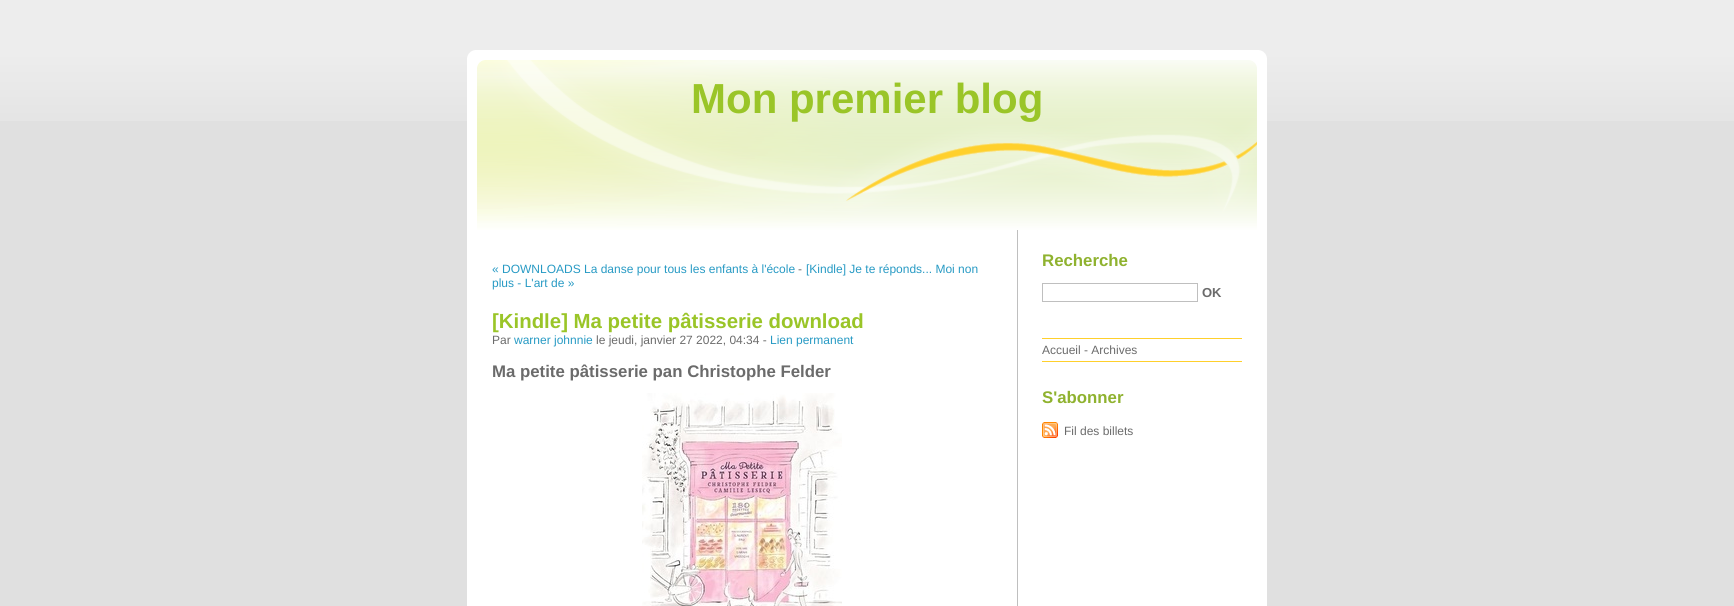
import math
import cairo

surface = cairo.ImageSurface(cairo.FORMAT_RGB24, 1734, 606)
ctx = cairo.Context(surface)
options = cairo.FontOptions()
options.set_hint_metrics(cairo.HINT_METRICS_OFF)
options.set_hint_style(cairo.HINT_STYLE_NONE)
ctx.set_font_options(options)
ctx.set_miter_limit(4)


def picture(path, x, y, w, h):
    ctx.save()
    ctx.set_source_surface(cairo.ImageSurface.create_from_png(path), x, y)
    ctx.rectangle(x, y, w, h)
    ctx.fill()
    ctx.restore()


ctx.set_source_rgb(0.878, 0.878, 0.878)
ctx.paint()
picture("img1.png", 0, 0, 1734, 121)
picture("img2.png", 467, 50, 800, 180)
ctx.select_font_face("Liberation Sans", cairo.FONT_SLANT_NORMAL, cairo.FONT_WEIGHT_BOLD)
ctx.set_font_size(42)
ctx.set_source_rgb(0.604, 0.773, 0.157)
ctx.move_to(691, 113)
ctx.show_text("Mon premier blog")
ctx.set_source_rgb(1, 1, 1)
ctx.rectangle(467, 230, 800, 376)
ctx.fill()
ctx.set_source_rgb(0.749, 0.749, 0.749)
ctx.rectangle(1017, 230, 1, 376)
ctx.fill()
ctx.select_font_face("Liberation Sans")
ctx.set_font_size(12)
ctx.set_source_rgb(0.153, 0.604, 0.769)
ctx.move_to(492, 273)
ctx.show_text("« DOWNLOADS La danse pour tous les enfants à l'école")
ctx.set_source_rgb(0.42, 0.42, 0.42)
ctx.move_to(798, 273)
ctx.show_text("-")
ctx.set_source_rgb(0.153, 0.604, 0.769)
ctx.move_to(806, 273)
ctx.show_text("[Kindle] Je te réponds... Moi non")
ctx.move_to(492, 287)
ctx.show_text("plus - L'art de »")
ctx.select_font_face("Liberation Sans", cairo.FONT_SLANT_NORMAL, cairo.FONT_WEIGHT_BOLD)
ctx.set_font_size(20.4)
ctx.set_source_rgb(0.604, 0.773, 0.157)
ctx.move_to(492, 328)
ctx.show_text("[Kindle] Ma petite pâtisserie download")
ctx.select_font_face("Liberation Sans")
ctx.set_font_size(12)
ctx.set_source_rgb(0.42, 0.42, 0.42)
ctx.move_to(492, 344)
ctx.show_text("Par")
ctx.set_source_rgb(0.153, 0.604, 0.769)
ctx.move_to(514, 344)
ctx.show_text("warner johnnie")
ctx.set_source_rgb(0.42, 0.42, 0.42)
ctx.move_to(596, 344)
ctx.show_text("le jeudi, janvier 27 2022, 04:34 -")
ctx.set_source_rgb(0.153, 0.604, 0.769)
ctx.move_to(770, 344)
ctx.show_text("Lien permanent")
ctx.select_font_face("Liberation Sans", cairo.FONT_SLANT_NORMAL, cairo.FONT_WEIGHT_BOLD)
ctx.set_font_size(16.8)
ctx.set_source_rgb(0.42, 0.42, 0.42)
ctx.move_to(492, 377)
ctx.show_text("Ma petite pâtisserie pan Christophe Felder")
picture("img3.png", 642, 393, 200, 213)
ctx.set_source_rgb(0.561, 0.698, 0.184)
ctx.move_to(1042, 266)
ctx.show_text("Recherche")
ctx.rectangle(1042.5, 283.5, 155, 18)
ctx.set_source_rgb(0.749, 0.749, 0.749)
ctx.set_line_width(1)
ctx.stroke()
ctx.set_font_size(13)
ctx.set_source_rgb(0.42, 0.42, 0.42)
ctx.move_to(1202, 297)
ctx.show_text("OK")
ctx.set_source_rgb(1, 0.816, 0.173)
ctx.rectangle(1042, 338, 200, 1)
ctx.fill()
ctx.rectangle(1042, 361, 200, 1)
ctx.fill()
ctx.select_font_face("Liberation Sans")
ctx.set_font_size(12)
ctx.set_source_rgb(0.42, 0.42, 0.42)
ctx.move_to(1042, 354)
ctx.show_text("Accueil - Archives")
ctx.select_font_face("Liberation Sans", cairo.FONT_SLANT_NORMAL, cairo.FONT_WEIGHT_BOLD)
ctx.set_font_size(16.8)
ctx.set_source_rgb(0.561, 0.698, 0.184)
ctx.move_to(1042, 403)
ctx.show_text("S'abonner")
picture("img4.png", 1042, 422, 16, 16)
ctx.select_font_face("Liberation Sans")
ctx.set_font_size(12)
ctx.set_source_rgb(0.42, 0.42, 0.42)
ctx.move_to(1064, 435)
ctx.show_text("Fil des billets")
surface.write_to_png("page.png")
